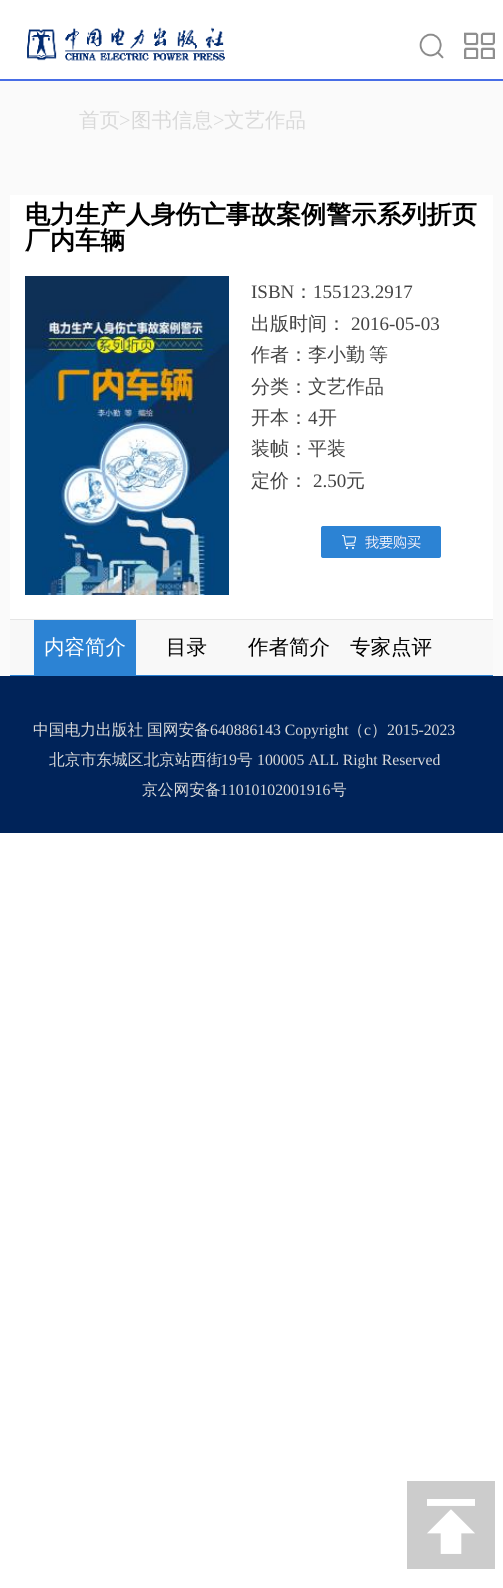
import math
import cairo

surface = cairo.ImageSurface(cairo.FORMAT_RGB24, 503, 1588)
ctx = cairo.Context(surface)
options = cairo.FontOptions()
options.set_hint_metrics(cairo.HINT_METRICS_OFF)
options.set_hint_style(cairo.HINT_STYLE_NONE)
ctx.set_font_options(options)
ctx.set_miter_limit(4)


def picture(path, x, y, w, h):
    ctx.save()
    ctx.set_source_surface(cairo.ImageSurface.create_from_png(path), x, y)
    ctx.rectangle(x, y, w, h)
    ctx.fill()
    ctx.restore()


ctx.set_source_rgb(1, 1, 1)
ctx.paint()
ctx.set_source_rgb(0.98, 0.98, 0.98)
ctx.rectangle(0, 81, 503, 595)
ctx.fill()
ctx.set_source_rgb(0.278, 0.427, 0.902)
ctx.rectangle(0, 79, 503, 2)
ctx.fill()
picture("img1.png", 27, 27, 198, 34)
picture("img2.png", 419, 33, 25, 26)
picture("img3.png", 464, 32, 31, 27)
ctx.select_font_face("WenQuanYi Zen Hei Medium")
ctx.set_font_size(20.5)
ctx.set_source_rgb(0.851, 0.851, 0.851)
ctx.move_to(79, 127)
ctx.show_text("首页")
ctx.select_font_face("Liberation Serif")
ctx.move_to(119, 127)
ctx.show_text(">")
ctx.select_font_face("WenQuanYi Zen Hei Medium")
ctx.move_to(131, 127)
ctx.show_text("图书信息")
ctx.select_font_face("Liberation Serif")
ctx.move_to(213, 127)
ctx.show_text(">")
ctx.select_font_face("WenQuanYi Zen Hei Medium")
ctx.move_to(224, 127)
ctx.show_text("文艺作品")
ctx.set_source_rgb(1, 1, 1)
ctx.rectangle(10, 195, 483, 424)
ctx.fill()
ctx.select_font_face("WenQuanYi Zen Hei", cairo.FONT_SLANT_NORMAL, cairo.FONT_WEIGHT_BOLD)
ctx.set_font_size(25.1)
ctx.set_source_rgb(0, 0, 0)
ctx.move_to(25, 223)
ctx.show_text("电力生产人身伤亡事故案例警示系列折页")
ctx.move_to(25, 249)
ctx.show_text("厂内车辆")
picture("img4.png", 25, 276, 204, 319)
ctx.select_font_face("Liberation Serif")
ctx.set_font_size(19)
ctx.set_source_rgb(0.263, 0.263, 0.263)
ctx.move_to(251, 298)
ctx.show_text("ISBN")
ctx.select_font_face("WenQuanYi Zen Hei Medium")
ctx.move_to(294, 298)
ctx.show_text("：")
ctx.select_font_face("Liberation Serif")
ctx.move_to(313, 298)
ctx.show_text("155123.2917")
ctx.select_font_face("WenQuanYi Zen Hei Medium")
ctx.move_to(251, 330)
ctx.show_text("出版时间：")
ctx.select_font_face("Liberation Serif")
ctx.move_to(351, 330)
ctx.show_text("2016-05-03")
ctx.select_font_face("WenQuanYi Zen Hei Medium")
ctx.move_to(251, 361)
ctx.show_text("作者：李小勤")
ctx.move_to(369, 361)
ctx.show_text("等")
ctx.move_to(251, 393)
ctx.show_text("分类：文艺作品")
ctx.move_to(251, 424)
ctx.show_text("开本：")
ctx.select_font_face("Liberation Serif")
ctx.move_to(308, 424)
ctx.show_text("4")
ctx.select_font_face("WenQuanYi Zen Hei Medium")
ctx.move_to(318, 424)
ctx.show_text("开")
ctx.move_to(251, 455)
ctx.show_text("装帧：平装")
ctx.move_to(251, 487)
ctx.show_text("定价：")
ctx.select_font_face("Liberation Serif")
ctx.move_to(313, 487)
ctx.show_text("2.50")
ctx.select_font_face("WenQuanYi Zen Hei Medium")
ctx.move_to(346, 487)
ctx.show_text("元")
picture("img5.png", 321, 526, 120, 32)
ctx.set_source_rgb(0.969, 0.969, 0.969)
ctx.rectangle(10, 620, 483, 55)
ctx.fill()
ctx.set_source_rgb(0.898, 0.898, 0.898)
ctx.rectangle(10, 619, 483, 1)
ctx.fill()
ctx.set_source_rgb(0.173, 0.514, 0.831)
ctx.rectangle(10, 675, 483, 1)
ctx.fill()
ctx.rectangle(34, 620, 102, 55)
ctx.fill()
ctx.set_font_size(20.5)
ctx.set_source_rgb(1, 1, 1)
ctx.move_to(44, 654)
ctx.show_text("内容简介")
ctx.set_source_rgb(0, 0, 0)
ctx.move_to(166, 654)
ctx.show_text("目录")
ctx.move_to(248, 654)
ctx.show_text("作者简介")
ctx.move_to(350, 654)
ctx.show_text("专家点评")
ctx.set_source_rgb(0, 0.137, 0.349)
ctx.rectangle(0, 676, 503, 157)
ctx.fill()
ctx.set_font_size(15.75)
ctx.set_source_rgb(0.851, 0.851, 0.851)
ctx.move_to(33, 735)
ctx.show_text("中国电力出版社")
ctx.move_to(147, 735)
ctx.show_text("国网安备")
ctx.select_font_face("Liberation Serif")
ctx.move_to(210, 735)
ctx.show_text("640886143 Copyright")
ctx.select_font_face("WenQuanYi Zen Hei Medium")
ctx.move_to(348, 735)
ctx.show_text("（")
ctx.select_font_face("Liberation Serif")
ctx.move_to(364, 735)
ctx.show_text("c")
ctx.select_font_face("WenQuanYi Zen Hei Medium")
ctx.move_to(371, 735)
ctx.show_text("）")
ctx.select_font_face("Liberation Serif")
ctx.move_to(387, 735)
ctx.show_text("2015-2023")
ctx.select_font_face("WenQuanYi Zen Hei Medium")
ctx.move_to(49, 765)
ctx.show_text("北京市东城区北京站西街")
ctx.select_font_face("Liberation Serif")
ctx.move_to(221, 765)
ctx.show_text("19")
ctx.select_font_face("WenQuanYi Zen Hei Medium")
ctx.move_to(237, 765)
ctx.show_text("号")
ctx.select_font_face("Liberation Serif")
ctx.move_to(257, 765)
ctx.show_text("100005 ALL Right Reserved")
ctx.select_font_face("WenQuanYi Zen Hei Medium")
ctx.move_to(142, 795)
ctx.show_text("京公网安备")
ctx.select_font_face("Liberation Serif")
ctx.move_to(220, 795)
ctx.show_text("11010102001916")
ctx.select_font_face("WenQuanYi Zen Hei Medium")
ctx.move_to(331, 795)
ctx.show_text("号")
picture("img6.png", 407, 1481, 88, 88)
surface.write_to_png("page.png")
